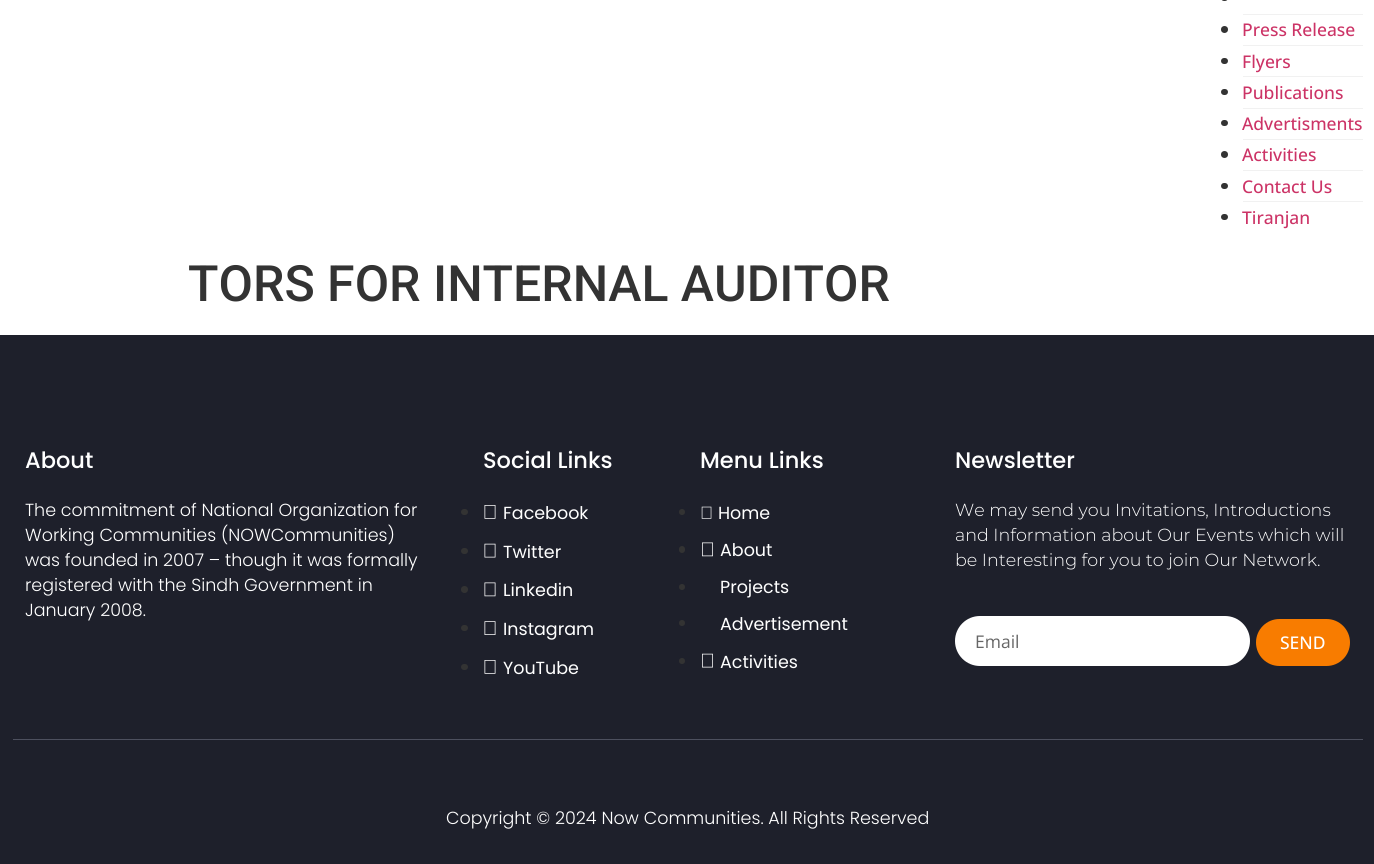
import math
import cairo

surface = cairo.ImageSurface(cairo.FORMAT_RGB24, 1374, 864)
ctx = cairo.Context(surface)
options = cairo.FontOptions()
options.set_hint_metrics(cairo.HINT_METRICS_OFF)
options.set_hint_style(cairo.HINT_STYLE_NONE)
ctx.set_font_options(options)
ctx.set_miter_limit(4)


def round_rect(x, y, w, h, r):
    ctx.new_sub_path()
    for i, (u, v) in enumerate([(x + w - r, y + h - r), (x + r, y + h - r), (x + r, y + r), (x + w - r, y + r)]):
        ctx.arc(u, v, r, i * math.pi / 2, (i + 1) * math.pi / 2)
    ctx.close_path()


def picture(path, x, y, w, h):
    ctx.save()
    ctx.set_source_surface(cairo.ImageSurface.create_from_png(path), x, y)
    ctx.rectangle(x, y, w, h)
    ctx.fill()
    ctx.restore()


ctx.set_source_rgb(1, 1, 1)
ctx.paint()
ctx.set_source_rgb(0.945, 0.945, 0.945)
ctx.rectangle(1243, 14, 120, 1)
ctx.fill()
ctx.set_source_rgb(0.2, 0.2, 0.2)
round_rect(1221, -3, 7, 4, 3)
ctx.fill()
ctx.set_source_rgb(0.945, 0.945, 0.945)
ctx.rectangle(1243, 45, 120, 1)
ctx.fill()
ctx.set_source_rgb(0.2, 0.2, 0.2)
ctx.arc(1224.5, 29.5, 3.5, 0, 2 * math.pi)
ctx.fill()
ctx.select_font_face("Open Sans Medium")
ctx.set_font_size(17.5)
ctx.set_source_rgb(0.8, 0.2, 0.4)
ctx.move_to(1242, 36)
ctx.show_text("Press Release")
ctx.set_source_rgb(0.945, 0.945, 0.945)
ctx.rectangle(1243, 76, 120, 1)
ctx.fill()
ctx.set_source_rgb(0.2, 0.2, 0.2)
round_rect(1221, 58, 7, 6, 3)
ctx.fill()
ctx.set_source_rgb(0.8, 0.2, 0.4)
ctx.move_to(1242, 68)
ctx.show_text("Flyers")
ctx.set_source_rgb(0.945, 0.945, 0.945)
ctx.rectangle(1243, 108, 120, 1)
ctx.fill()
ctx.set_source_rgb(0.2, 0.2, 0.2)
round_rect(1221, 89, 7, 6, 3)
ctx.fill()
ctx.set_source_rgb(0.8, 0.2, 0.4)
ctx.move_to(1242, 99)
ctx.show_text("Publications")
ctx.set_source_rgb(0.945, 0.945, 0.945)
ctx.rectangle(1243, 139, 120, 1)
ctx.fill()
ctx.set_source_rgb(0.2, 0.2, 0.2)
round_rect(1221, 120, 7, 6, 3)
ctx.fill()
ctx.set_source_rgb(0.8, 0.2, 0.4)
ctx.move_to(1242, 130)
ctx.show_text("Advertisments")
ctx.set_source_rgb(0.945, 0.945, 0.945)
ctx.rectangle(1243, 170, 120, 1)
ctx.fill()
ctx.set_source_rgb(0.2, 0.2, 0.2)
ctx.arc(1224.5, 154.5, 3.5, 0, 2 * math.pi)
ctx.fill()
ctx.set_source_rgb(0.8, 0.2, 0.4)
ctx.move_to(1242, 161)
ctx.show_text("Activities")
ctx.set_source_rgb(0.945, 0.945, 0.945)
ctx.rectangle(1243, 201, 120, 1)
ctx.fill()
ctx.set_source_rgb(0.2, 0.2, 0.2)
round_rect(1221, 183, 7, 6, 3)
ctx.fill()
ctx.set_source_rgb(0.8, 0.2, 0.4)
ctx.move_to(1242, 193)
ctx.show_text("Contact Us")
ctx.set_source_rgb(0.2, 0.2, 0.2)
round_rect(1221, 214, 7, 6, 3)
ctx.fill()
ctx.set_source_rgb(0.8, 0.2, 0.4)
ctx.move_to(1242, 224)
ctx.show_text("Tiranjan")
ctx.select_font_face("Roboto Medium")
ctx.set_font_size(50)
ctx.set_source_rgb(0.2, 0.2, 0.2)
ctx.move_to(188, 301)
ctx.show_text("TORS FOR INTERNAL AUDITOR")
ctx.set_source_rgb(0.118, 0.125, 0.169)
ctx.rectangle(0, 335, 1374, 529)
ctx.fill()
ctx.set_source_rgb(0.302, 0.314, 0.369)
ctx.rectangle(13, 739, 1350, 1)
ctx.fill()
ctx.select_font_face("Poppins Medium")
ctx.set_font_size(22.5)
ctx.set_source_rgb(1, 1, 1)
ctx.move_to(25, 468)
ctx.show_text("About")
ctx.select_font_face("Poppins Light")
ctx.set_font_size(17.5)
ctx.move_to(25, 516)
ctx.show_text("The commitment of National Organization for")
ctx.move_to(25, 541)
ctx.show_text("Working Communities (NOWCommunities)")
ctx.move_to(25, 566)
ctx.show_text("was founded in 2007 – though it was formally")
ctx.move_to(25, 591)
ctx.show_text("registered with the Sindh Government in")
ctx.move_to(25, 616)
ctx.show_text("January 2008.")
ctx.select_font_face("Poppins Medium")
ctx.set_font_size(22.5)
ctx.move_to(483, 468)
ctx.show_text("Social Links")
ctx.set_source_rgb(0.2, 0.2, 0.2)
round_rect(461, 509, 7, 6, 3)
ctx.fill()
picture("img1.png", 484, 505, 12, 14)
ctx.select_font_face("Poppins")
ctx.set_font_size(17.5)
ctx.set_source_rgb(1, 1, 1)
ctx.move_to(503, 519)
ctx.show_text("Facebook")
ctx.set_source_rgb(0.2, 0.2, 0.2)
round_rect(461, 548, 7, 6, 3)
ctx.fill()
picture("img2.png", 484, 543, 12, 15)
ctx.set_source_rgb(1, 1, 1)
ctx.move_to(503, 558)
ctx.show_text("Twitter")
ctx.set_source_rgb(0.2, 0.2, 0.2)
ctx.new_path()
ctx.arc(464.5, 589.5, 3.5, 0, 2 * math.pi)
ctx.fill()
picture("img3.png", 484, 582, 12, 15)
ctx.set_source_rgb(1, 1, 1)
ctx.move_to(503, 596)
ctx.show_text("Linkedin")
ctx.set_source_rgb(0.2, 0.2, 0.2)
round_rect(461, 625, 7, 6, 3)
ctx.fill()
picture("img4.png", 484, 621, 12, 14)
ctx.set_source_rgb(1, 1, 1)
ctx.move_to(503, 635)
ctx.show_text("Instagram")
ctx.set_source_rgb(0.2, 0.2, 0.2)
round_rect(461, 664, 7, 6, 3)
ctx.fill()
picture("img1.png", 484, 660, 12, 14)
ctx.set_source_rgb(1, 1, 1)
ctx.move_to(503, 674)
ctx.show_text("YouTube")
ctx.select_font_face("Poppins Medium")
ctx.set_font_size(22.5)
ctx.move_to(700, 468)
ctx.show_text("Menu Links")
ctx.set_source_rgb(0.2, 0.2, 0.2)
ctx.new_path()
ctx.arc(682, 512, 3, 0, 2 * math.pi)
ctx.fill()
picture("img5.png", 701, 506, 11, 13)
ctx.select_font_face("Poppins")
ctx.set_font_size(17.5)
ctx.set_source_rgb(1, 1, 1)
ctx.move_to(718, 519)
ctx.show_text("Home")
ctx.set_source_rgb(0.2, 0.2, 0.2)
round_rect(679, 546, 6, 7, 3)
ctx.fill()
picture("img6.png", 702, 542, 11, 15)
ctx.set_source_rgb(1, 1, 1)
ctx.move_to(720, 556)
ctx.show_text("About")
ctx.set_source_rgb(0.2, 0.2, 0.2)
ctx.new_path()
ctx.arc(682, 587, 3, 0, 2 * math.pi)
ctx.fill()
ctx.set_source_rgb(1, 1, 1)
ctx.move_to(720, 593)
ctx.show_text("Projects")
ctx.set_source_rgb(0.2, 0.2, 0.2)
ctx.new_path()
ctx.arc(682, 623, 3, 0, 2 * math.pi)
ctx.fill()
ctx.set_source_rgb(1, 1, 1)
ctx.move_to(720, 630)
ctx.show_text("Advertisement")
ctx.set_source_rgb(0.2, 0.2, 0.2)
ctx.new_path()
ctx.arc(682, 661, 3, 0, 2 * math.pi)
ctx.fill()
picture("img7.png", 702, 653, 11, 15)
ctx.set_source_rgb(1, 1, 1)
ctx.move_to(720, 668)
ctx.show_text("Activities")
ctx.select_font_face("Poppins Medium")
ctx.set_font_size(22.5)
ctx.move_to(955, 468)
ctx.show_text("Newsletter")
ctx.select_font_face("Montserrat Light")
ctx.set_font_size(17.5)
ctx.move_to(955, 516)
ctx.show_text("We may send you Invitations, Introductions")
ctx.move_to(955, 541)
ctx.show_text("and Information about Our Events which will")
ctx.move_to(955, 566)
ctx.show_text("be Interesting for you to join Our Network.")
round_rect(955, 616, 295, 50, 25)
ctx.fill()
ctx.select_font_face("Open Sans")
ctx.set_source_rgb(0.4, 0.4, 0.4)
ctx.move_to(975, 648)
ctx.show_text("Email")
ctx.set_source_rgb(0.969, 0.486, 0)
round_rect(1256, 619, 94, 47, 23.5)
ctx.fill()
ctx.select_font_face("Open Sans Medium")
ctx.set_source_rgb(1, 1, 1)
ctx.move_to(1280, 649)
ctx.show_text("SEND")
ctx.select_font_face("Poppins Light")
ctx.move_to(446, 824)
ctx.show_text("Copyright © 2024 Now Communities. All Rights Reserved")
surface.write_to_png("page.png")
